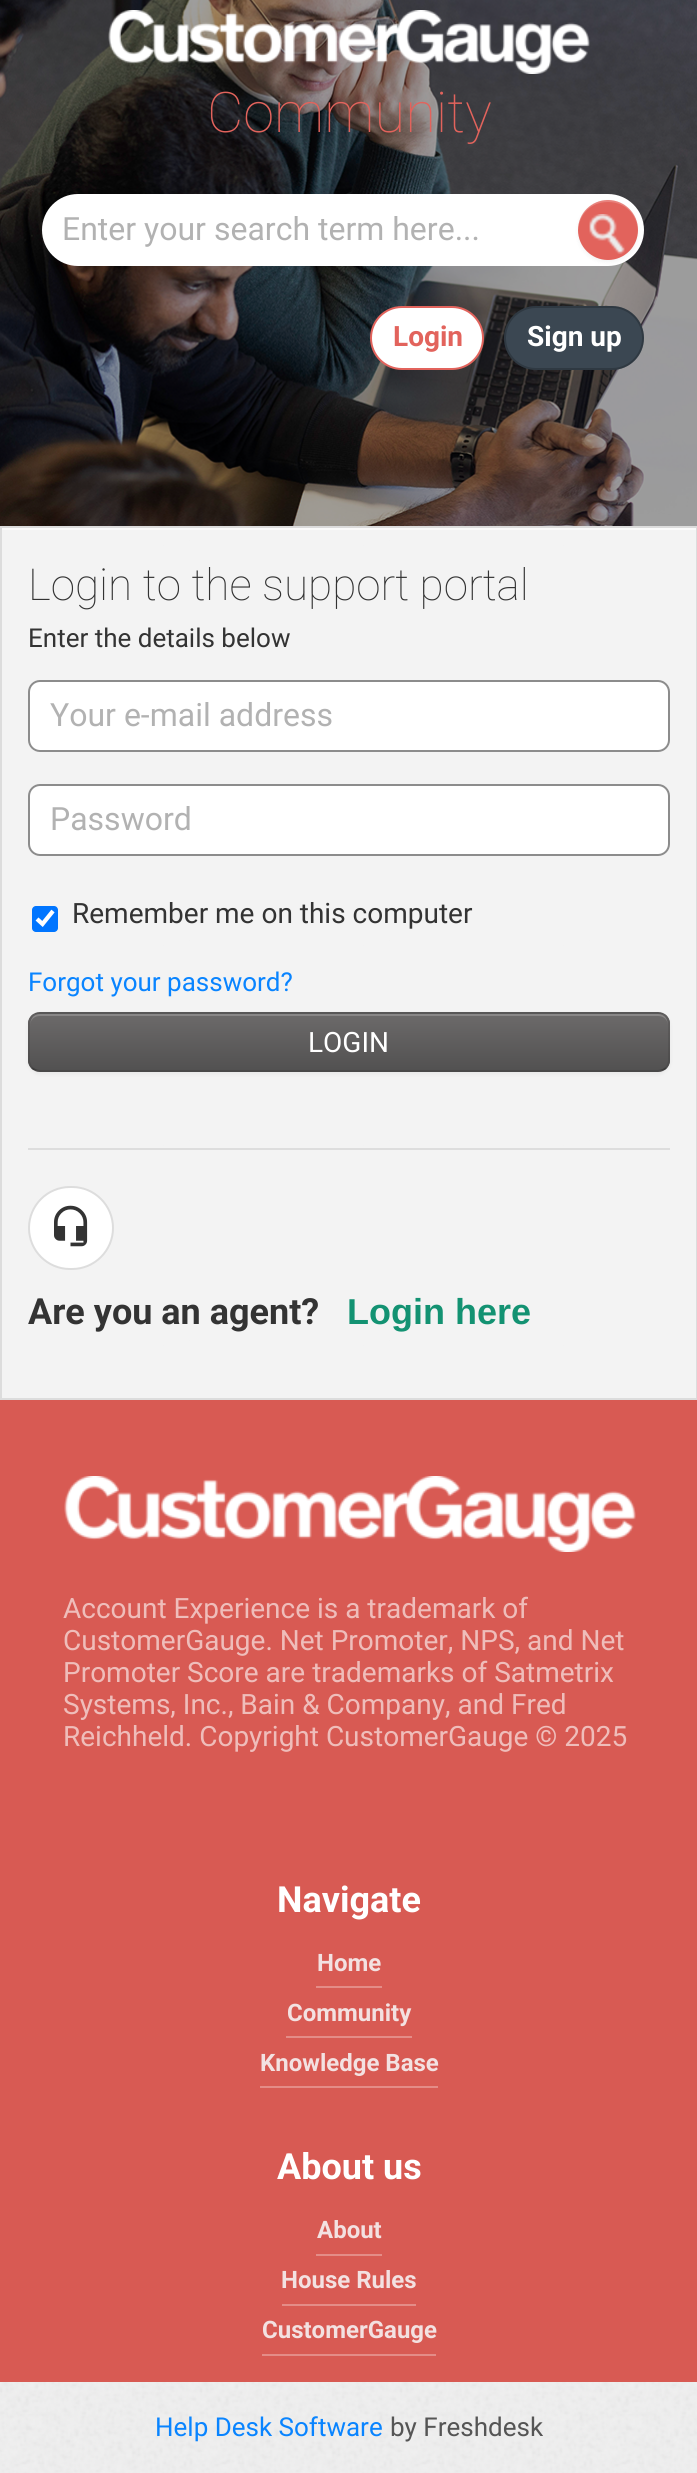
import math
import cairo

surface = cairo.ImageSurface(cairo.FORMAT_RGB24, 697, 2473)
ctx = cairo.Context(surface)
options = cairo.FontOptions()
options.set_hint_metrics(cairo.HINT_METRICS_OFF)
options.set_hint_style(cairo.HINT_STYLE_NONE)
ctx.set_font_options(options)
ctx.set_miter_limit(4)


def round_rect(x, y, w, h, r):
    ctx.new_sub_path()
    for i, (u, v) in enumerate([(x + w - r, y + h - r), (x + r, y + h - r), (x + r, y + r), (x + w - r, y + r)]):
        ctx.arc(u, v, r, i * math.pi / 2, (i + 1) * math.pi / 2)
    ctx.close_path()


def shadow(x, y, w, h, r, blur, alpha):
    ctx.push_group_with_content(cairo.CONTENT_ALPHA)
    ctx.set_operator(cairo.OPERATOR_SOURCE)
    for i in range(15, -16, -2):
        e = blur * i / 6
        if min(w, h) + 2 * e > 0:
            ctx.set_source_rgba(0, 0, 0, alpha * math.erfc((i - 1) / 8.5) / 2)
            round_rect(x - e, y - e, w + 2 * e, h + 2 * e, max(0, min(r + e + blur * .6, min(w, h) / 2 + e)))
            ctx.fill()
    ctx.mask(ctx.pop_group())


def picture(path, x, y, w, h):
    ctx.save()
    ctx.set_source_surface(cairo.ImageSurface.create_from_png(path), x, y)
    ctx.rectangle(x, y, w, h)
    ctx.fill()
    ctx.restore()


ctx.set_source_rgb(0.937, 0.937, 0.937)
ctx.paint()
picture("img1.png", 0, 530, 697, 1943)
picture("img2.png", 0, 0, 697, 526)
picture("img3.png", 108, 10, 482, 64)
ctx.select_font_face("Roboto Thin")
ctx.set_font_size(56)
ctx.set_source_rgb(0.886, 0.388, 0.361)
ctx.move_to(207, 132)
ctx.show_text("Community")
ctx.set_source_rgb(1, 1, 1)
round_rect(42, 194, 602, 72, 36)
ctx.fill()
ctx.select_font_face("Roboto")
ctx.set_font_size(32)
ctx.set_source_rgb(0.698, 0.698, 0.698)
ctx.move_to(62, 240)
ctx.show_text("Enter your search term here...")
ctx.set_source_rgb(0, 0, 0)
shadow(578, 202, 60, 60, 30, 2, 0.05)
ctx.set_source_rgb(0.886, 0.388, 0.361)
ctx.arc(608, 230, 30, 0, 2 * math.pi)
ctx.fill()
ctx.set_source_rgba(1, 1, 1, 0.2)
ctx.new_path()
ctx.move_to(608, 202)
ctx.curve_to(625, 202, 637, 214, 638, 231)
ctx.curve_to(638, 225, 636, 218, 633, 213)
ctx.curve_to(616, 188, 577, 201, 578, 231)
ctx.curve_to(579, 214, 591, 202, 608, 202)
ctx.close_path()
ctx.fill()
picture("img4.png", 589, 214, 36, 40)
ctx.set_source_rgb(1, 1, 1)
round_rect(371, 307, 112, 62, 31)
ctx.fill_preserve()
ctx.set_source_rgb(0.886, 0.388, 0.361)
ctx.stroke()
ctx.select_font_face("Roboto", cairo.FONT_SLANT_NORMAL, cairo.FONT_WEIGHT_BOLD)
ctx.set_font_size(28)
ctx.move_to(393, 346)
ctx.show_text("Login")
ctx.set_source_rgb(0.231, 0.278, 0.322)
round_rect(504, 306, 140, 64, 32)
ctx.fill()
round_rect(505, 307, 138, 62, 31)
ctx.set_source_rgba(0, 0, 0, 0.2)
ctx.stroke()
ctx.set_source_rgb(1, 1, 1)
ctx.move_to(527, 346)
ctx.show_text("Sign up")
ctx.set_source_rgba(0.957, 0.957, 0.957, 0.9)
ctx.rectangle(2, 530, 694, 868)
ctx.fill()
ctx.set_source_rgb(0.984, 0.984, 0.984)
ctx.rectangle(2, 528, 694, 2)
ctx.fill()
ctx.rectangle(1, 527, 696, 872)
ctx.set_source_rgb(0.863, 0.863, 0.863)
ctx.stroke()
ctx.select_font_face("Roboto Thin")
ctx.set_font_size(44)
ctx.set_source_rgb(0.2, 0.2, 0.2)
ctx.move_to(28, 600)
ctx.show_text("Login to the support portal")
ctx.select_font_face("Roboto")
ctx.set_font_size(26)
ctx.move_to(28, 647)
ctx.show_text("Enter the details below")
ctx.set_source_rgb(1, 1, 1)
round_rect(29, 681, 640, 70, 11)
ctx.fill_preserve()
ctx.set_source_rgb(0.549, 0.549, 0.549)
ctx.stroke()
ctx.set_font_size(32)
ctx.set_source_rgb(0.698, 0.698, 0.698)
ctx.move_to(50, 726)
ctx.show_text("Your e-mail address")
ctx.set_source_rgb(1, 1, 1)
round_rect(29, 785, 640, 70, 11)
ctx.fill_preserve()
ctx.set_source_rgb(0.549, 0.549, 0.549)
ctx.stroke()
ctx.set_source_rgb(0.698, 0.698, 0.698)
ctx.move_to(50, 830)
ctx.show_text("Password")
ctx.set_source_rgb(0, 0.459, 1)
round_rect(32, 906, 26, 26, 4)
ctx.fill()
ctx.new_path()
ctx.move_to(37, 919)
ctx.line_to(42.5, 924)
ctx.line_to(53, 911)
ctx.set_source_rgb(1, 1, 1)
ctx.set_line_width(4.2)
ctx.stroke()
ctx.set_font_size(28)
ctx.set_source_rgb(0.2, 0.2, 0.2)
ctx.move_to(72, 923)
ctx.show_text("Remember me on this computer")
ctx.set_font_size(26)
ctx.set_source_rgb(0.039, 0.518, 1)
ctx.move_to(28, 991)
ctx.show_text("Forgot your password?")
ctx.set_source_rgb(0, 0, 0)
shadow(28, 1014, 642, 60, 12, 2, 0.05)
ctx.set_source_rgb(0.384, 0.376, 0.376)
round_rect(28, 1012, 642, 60, 12)
ctx.fill()
ctx.save()
round_rect(28, 1012, 642, 60, 12)
ctx.clip()
gradient = cairo.LinearGradient(349, 1014, 349, 1070)
gradient.add_color_stop_rgba(0, 0.424, 0.416, 0.416, 1)
gradient.add_color_stop_rgba(1, 0.322, 0.318, 0.318, 1)
ctx.set_source(gradient)
ctx.rectangle(28, 1014, 642, 56)
ctx.fill()
ctx.restore()
ctx.set_source_rgba(1, 1, 1, 0.2)
ctx.new_path()
ctx.move_to(40, 1016)
ctx.line_to(658, 1016)
ctx.curve_to(664, 1016, 668, 1020, 668, 1026)
ctx.curve_to(668, 1020, 665, 1014, 658, 1014)
ctx.line_to(40, 1014)
ctx.curve_to(33, 1014, 30, 1020, 30, 1026)
ctx.curve_to(30, 1020, 34, 1016, 40, 1016)
ctx.close_path()
ctx.fill()
ctx.new_path()
ctx.move_to(666, 1068)
ctx.curve_to(663.5, 1070, 661, 1071, 658, 1071)
ctx.line_to(40, 1071)
ctx.curve_to(37, 1071, 34.5, 1070, 32, 1068)
ctx.set_source_rgba(0, 0, 0, 0.25)
ctx.set_line_width(2)
ctx.stroke()
ctx.new_path()
ctx.move_to(32, 1068)
ctx.curve_to(30, 1065.5, 29, 1063, 29, 1060)
ctx.line_to(29, 1024)
ctx.curve_to(29, 1021, 30, 1018.5, 32, 1016)
ctx.curve_to(34.5, 1014, 37, 1013, 40, 1013)
ctx.line_to(658, 1013)
ctx.curve_to(661, 1013, 663.5, 1014, 666, 1016)
ctx.curve_to(668, 1018.5, 669, 1021, 669, 1024)
ctx.line_to(669, 1060)
ctx.curve_to(669, 1063, 668, 1065.5, 666, 1068)
ctx.set_source_rgba(0, 0, 0, 0.1)
ctx.stroke()
ctx.set_font_size(28)
ctx.set_source_rgb(1, 1, 1)
ctx.move_to(308, 1052)
ctx.show_text("LOGIN")
ctx.set_source_rgb(0.867, 0.867, 0.867)
ctx.rectangle(28, 1148, 642, 2)
ctx.fill()
ctx.set_source_rgb(1, 1, 1)
round_rect(29, 1187, 84, 82, 41)
ctx.fill_preserve()
ctx.set_source_rgb(0.867, 0.867, 0.867)
ctx.stroke()
picture("img5.png", 54, 1205, 34, 42)
ctx.select_font_face("Roboto", cairo.FONT_SLANT_NORMAL, cairo.FONT_WEIGHT_BOLD)
ctx.set_font_size(36)
ctx.set_source_rgb(0.2, 0.2, 0.2)
ctx.move_to(28, 1324)
ctx.show_text("Are you an agent?")
ctx.select_font_face("Liberation Sans", cairo.FONT_SLANT_NORMAL, cairo.FONT_WEIGHT_BOLD)
ctx.set_source_rgb(0.075, 0.573, 0.447)
ctx.move_to(347, 1324)
ctx.show_text("Login here")
ctx.set_source_rgb(0.847, 0.353, 0.325)
ctx.rectangle(0, 1400, 697, 982)
ctx.fill()
picture("img6.png", 64, 1476, 572, 76)
ctx.select_font_face("Roboto")
ctx.set_font_size(28)
ctx.set_source_rgb(0.937, 0.741, 0.729)
ctx.move_to(63, 1618)
ctx.show_text("Account Experience is a trademark of")
ctx.move_to(63, 1650)
ctx.show_text("CustomerGauge. Net Promoter, NPS, and Net")
ctx.move_to(63, 1682)
ctx.show_text("Promoter Score are trademarks of Satmetrix")
ctx.move_to(63, 1714)
ctx.show_text("Systems, Inc., Bain & Company, and Fred")
ctx.move_to(63, 1746)
ctx.show_text("Reichheld. Copyright CustomerGauge © 2025")
ctx.select_font_face("Roboto", cairo.FONT_SLANT_NORMAL, cairo.FONT_WEIGHT_BOLD)
ctx.set_font_size(36)
ctx.set_source_rgb(1, 1, 1)
ctx.move_to(277, 1912)
ctx.show_text("Navigate")
ctx.set_source_rgb(0.894, 0.549, 0.529)
ctx.rectangle(316, 1986, 66, 2)
ctx.fill()
ctx.set_font_size(24)
ctx.set_source_rgb(0.953, 0.882, 0.882)
ctx.move_to(317, 1971)
ctx.show_text("Home")
ctx.set_source_rgb(0.894, 0.549, 0.529)
ctx.rectangle(286, 2036, 126, 2)
ctx.fill()
ctx.set_source_rgb(0.953, 0.882, 0.882)
ctx.move_to(287, 2021)
ctx.show_text("Community")
ctx.set_source_rgb(0.894, 0.549, 0.529)
ctx.rectangle(260, 2086, 178, 2)
ctx.fill()
ctx.set_source_rgb(0.953, 0.882, 0.882)
ctx.move_to(260, 2071)
ctx.show_text("Knowledge Base")
ctx.set_font_size(36)
ctx.set_source_rgb(1, 1, 1)
ctx.move_to(277, 2179)
ctx.show_text("About us")
ctx.set_source_rgb(0.894, 0.549, 0.529)
ctx.rectangle(316, 2254, 66, 2)
ctx.fill()
ctx.set_font_size(24)
ctx.set_source_rgb(0.953, 0.882, 0.882)
ctx.move_to(317, 2238)
ctx.show_text("About")
ctx.set_source_rgb(0.894, 0.549, 0.529)
ctx.rectangle(282, 2304, 134, 2)
ctx.fill()
ctx.set_source_rgb(0.953, 0.882, 0.882)
ctx.move_to(281, 2288)
ctx.show_text("House Rules")
ctx.set_source_rgb(0.894, 0.549, 0.529)
ctx.rectangle(262, 2354, 174, 2)
ctx.fill()
ctx.set_source_rgb(0.953, 0.882, 0.882)
ctx.move_to(262, 2338)
ctx.show_text("CustomerGauge")
ctx.select_font_face("Roboto")
ctx.set_font_size(26)
ctx.set_source_rgb(0.039, 0.518, 1)
ctx.move_to(155, 2436)
ctx.show_text("Help Desk Software")
ctx.set_source_rgb(0.333, 0.333, 0.333)
ctx.move_to(390, 2436)
ctx.show_text("by Freshdesk")
surface.write_to_png("page.png")
